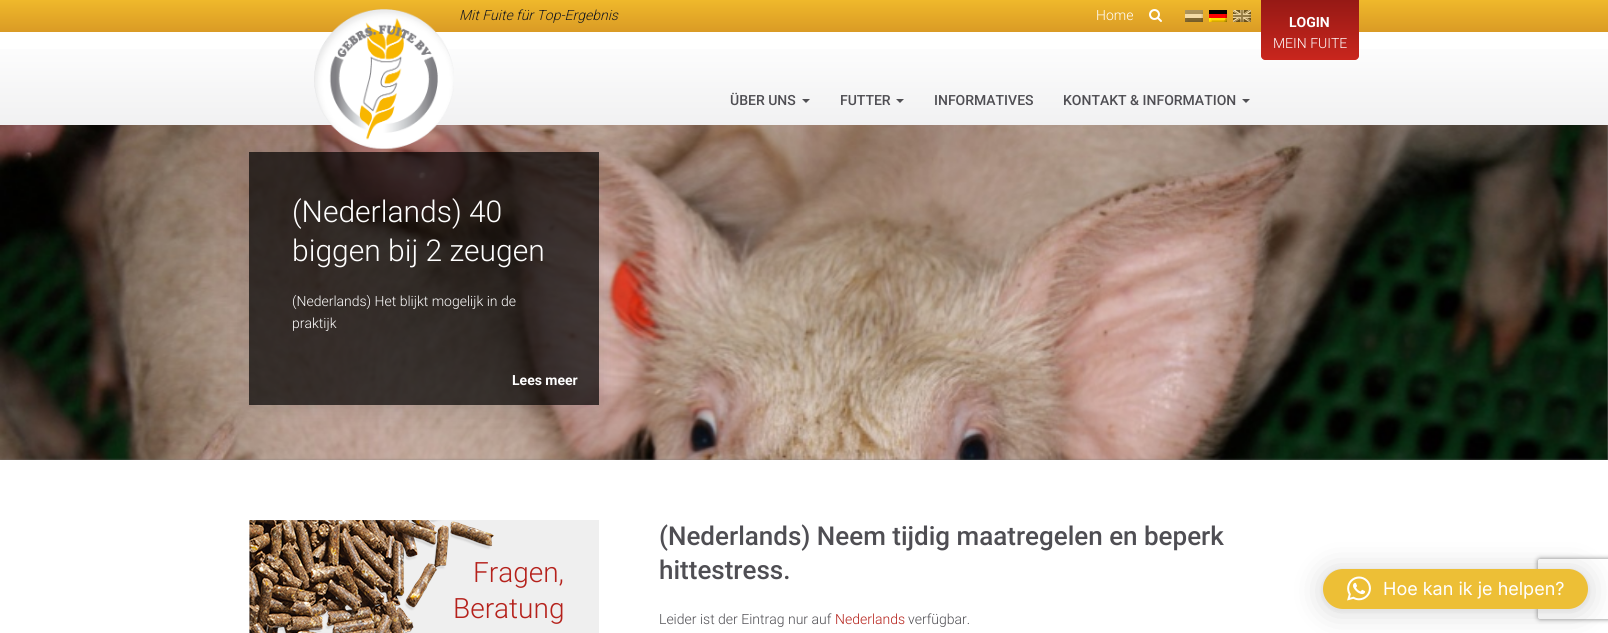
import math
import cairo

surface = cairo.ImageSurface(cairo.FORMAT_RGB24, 1608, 633)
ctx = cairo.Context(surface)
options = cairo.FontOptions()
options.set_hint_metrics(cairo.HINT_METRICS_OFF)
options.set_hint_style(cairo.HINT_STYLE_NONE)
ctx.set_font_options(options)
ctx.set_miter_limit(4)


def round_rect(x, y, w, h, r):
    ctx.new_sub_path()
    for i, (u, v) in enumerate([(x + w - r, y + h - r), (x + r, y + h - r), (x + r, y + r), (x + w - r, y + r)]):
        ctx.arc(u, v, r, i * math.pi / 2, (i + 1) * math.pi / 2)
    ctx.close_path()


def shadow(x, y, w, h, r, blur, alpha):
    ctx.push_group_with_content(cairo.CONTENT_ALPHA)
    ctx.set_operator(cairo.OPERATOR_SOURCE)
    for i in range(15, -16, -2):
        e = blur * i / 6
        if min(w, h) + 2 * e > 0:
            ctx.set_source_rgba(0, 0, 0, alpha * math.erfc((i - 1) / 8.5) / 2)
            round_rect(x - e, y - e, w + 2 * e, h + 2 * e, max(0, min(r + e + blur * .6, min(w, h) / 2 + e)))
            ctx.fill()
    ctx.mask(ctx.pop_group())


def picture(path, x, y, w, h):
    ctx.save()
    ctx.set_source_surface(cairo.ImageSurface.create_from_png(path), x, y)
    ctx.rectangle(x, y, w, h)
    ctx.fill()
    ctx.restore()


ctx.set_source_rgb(1, 1, 1)
ctx.paint()
gradient = cairo.LinearGradient(804, 0, 804, 32)
gradient.add_color_stop_rgba(0, 0.937, 0.722, 0.169, 1)
gradient.add_color_stop_rgba(1, 0.855, 0.608, 0.145, 1)
ctx.set_source(gradient)
ctx.rectangle(0, 0, 1608, 32)
ctx.fill()
ctx.select_font_face("Roboto Light", cairo.FONT_SLANT_ITALIC)
ctx.set_font_size(14)
ctx.set_source_rgb(0.106, 0.11, 0.122)
ctx.move_to(459, 20)
ctx.show_text("Mit Fuite für Top-Ergebnis")
ctx.select_font_face("Roboto Light")
ctx.set_source_rgb(1, 1, 1)
ctx.move_to(1096, 20)
ctx.show_text("Home")
picture("img1.png", 1149, 9, 13, 13)
picture("img2.png", 1185, 10, 18, 12)
picture("img3.png", 1209, 10, 18, 12)
picture("img4.png", 1233, 10, 18, 12)
ctx.set_source_rgb(0.467, 0.467, 0.467)
ctx.rectangle(0, 125, 1608, 335)
ctx.fill()
picture("img6.png", 0, 125, 1608, 335)
ctx.save()
ctx.set_fill_rule(cairo.FILL_RULE_EVEN_ODD)
ctx.new_path()
ctx.move_to(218, 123)
ctx.line_to(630, 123)
ctx.line_to(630, 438)
ctx.line_to(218, 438)
ctx.close_path()
ctx.move_to(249, 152)
ctx.line_to(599, 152)
ctx.line_to(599, 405)
ctx.line_to(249, 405)
ctx.close_path()
ctx.clip()
ctx.set_source_rgb(0.392, 0.392, 0.392)
shadow(249, 154, 350, 253, 0, 10, 0.19)
ctx.restore()
gradient = cairo.LinearGradient(804, 32, 804, 125)
gradient.add_color_stop_rgba(0, 1, 1, 1, 1)
gradient.add_color_stop_rgba(1, 0.945, 0.945, 0.949, 1)
ctx.set_source(gradient)
ctx.rectangle(0, 49, 1608, 76)
ctx.fill()
gradient = cairo.LinearGradient(1310, 0, 1310, 60)
gradient.add_color_stop_rgba(0, 0.588, 0.098, 0.082, 1)
gradient.add_color_stop_rgba(1, 0.788, 0.149, 0.114, 1)
ctx.set_source(gradient)
ctx.new_path()
ctx.move_to(1261, 0)
ctx.line_to(1359, 0)
ctx.line_to(1359, 56)
ctx.curve_to(1359, 58, 1357, 60, 1355, 60)
ctx.line_to(1265, 60)
ctx.curve_to(1263, 60, 1261, 58, 1261, 56)
ctx.close_path()
ctx.fill()
ctx.select_font_face("Roboto", cairo.FONT_SLANT_NORMAL, cairo.FONT_WEIGHT_BOLD)
ctx.set_source_rgb(1, 1, 1)
ctx.move_to(1289, 27)
ctx.show_text("LOGIN")
ctx.select_font_face("Roboto Light")
ctx.move_to(1273, 48)
ctx.show_text("MEIN FUITE")
picture("img5.png", 314, 9, 140, 140)
ctx.select_font_face("Roboto Medium")
ctx.set_source_rgb(0.31, 0.306, 0.325)
ctx.move_to(730, 105)
ctx.show_text("ÜBER UNS")
ctx.set_source_rgb(0.314, 0.31, 0.325)
ctx.new_path()
ctx.move_to(802, 99)
ctx.line_to(810, 99)
ctx.line_to(806, 103)
ctx.close_path()
ctx.fill()
ctx.set_source_rgb(0.31, 0.306, 0.325)
ctx.move_to(840, 105)
ctx.show_text("FUTTER")
ctx.set_source_rgb(0.314, 0.31, 0.325)
ctx.new_path()
ctx.move_to(896, 99)
ctx.line_to(904, 99)
ctx.line_to(900, 103)
ctx.close_path()
ctx.fill()
ctx.set_source_rgb(0.31, 0.306, 0.325)
ctx.move_to(934, 105)
ctx.show_text("INFORMATIVES")
ctx.move_to(1063, 105)
ctx.show_text("KONTAKT & INFORMATION")
ctx.set_source_rgb(0.314, 0.31, 0.325)
ctx.new_path()
ctx.move_to(1242, 99)
ctx.line_to(1250, 99)
ctx.line_to(1246, 103)
ctx.close_path()
ctx.fill()
ctx.set_source_rgba(0, 0, 0, 0.7)
ctx.rectangle(249, 152, 350, 253)
ctx.fill()
ctx.select_font_face("Roboto Light")
ctx.set_font_size(30)
ctx.set_source_rgb(1, 1, 1)
ctx.move_to(292, 222)
ctx.show_text("(Nederlands) 40")
ctx.move_to(292, 261)
ctx.show_text("biggen bij 2 zeugen")
ctx.set_font_size(14)
ctx.move_to(292, 306)
ctx.show_text("(Nederlands) Het blijkt mogelijk in de")
ctx.move_to(292, 328)
ctx.show_text("praktijk")
ctx.select_font_face("Roboto", cairo.FONT_SLANT_NORMAL, cairo.FONT_WEIGHT_BOLD)
ctx.move_to(512, 385)
ctx.show_text("Lees meer")
ctx.set_source_rgb(0.937, 0.937, 0.937)
ctx.rectangle(249, 520, 350, 113)
ctx.fill()
picture("img7.png", 249, 520, 245, 113)
ctx.select_font_face("Roboto Light")
ctx.set_font_size(28)
ctx.set_source_rgb(0.71, 0.129, 0.106)
ctx.move_to(473, 582)
ctx.show_text("Fragen,")
ctx.move_to(453, 618)
ctx.show_text("Beratung")
ctx.select_font_face("Roboto Medium")
ctx.set_font_size(26)
ctx.set_source_rgb(0.31, 0.306, 0.325)
ctx.move_to(659, 545)
ctx.show_text("(Nederlands) Neem tijdig maatregelen en beperk")
ctx.move_to(659, 579)
ctx.show_text("hittestress.")
ctx.select_font_face("Roboto Light")
ctx.set_font_size(14)
ctx.move_to(659, 624)
ctx.show_text("Leider ist der Eintrag nur auf")
ctx.set_source_rgb(0.71, 0.129, 0.106)
ctx.move_to(835, 624)
ctx.show_text("Nederlands")
ctx.set_source_rgb(0.31, 0.306, 0.325)
ctx.move_to(908, 624)
ctx.show_text("verfügbar.")
ctx.set_source_rgb(0, 0, 0)
shadow(1323, 571, 265, 40, 20, 16, 0.16)
shadow(1323, 570, 265, 40, 20, 3, 0.06)
ctx.save()
ctx.set_fill_rule(cairo.FILL_RULE_EVEN_ODD)
ctx.new_path()
ctx.move_to(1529, 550)
ctx.line_to(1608, 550)
ctx.line_to(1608, 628)
ctx.line_to(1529, 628)
ctx.close_path()
ctx.move_to(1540, 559)
ctx.line_to(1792, 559)
ctx.curve_to(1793, 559, 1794, 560, 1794, 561)
ctx.line_to(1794, 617)
ctx.curve_to(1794, 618, 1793, 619, 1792, 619)
ctx.line_to(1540, 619)
ctx.curve_to(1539, 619, 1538, 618, 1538, 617)
ctx.line_to(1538, 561)
ctx.curve_to(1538, 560, 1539, 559, 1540, 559)
ctx.close_path()
ctx.clip()
ctx.set_source_rgb(0.502, 0.502, 0.502)
shadow(1538, 559, 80, 60, 2, 2.5, 1)
ctx.restore()
ctx.set_source_rgb(0.929, 0.749, 0.212)
round_rect(1323, 569, 265, 40, 20)
ctx.fill()
picture("img8.png", 1347, 576, 24, 25)
ctx.select_font_face("Inter")
ctx.set_font_size(18)
ctx.set_source_rgb(1, 1, 1)
ctx.move_to(1383, 595)
ctx.show_text("Hoe kan ik je helpen?")
surface.write_to_png("page.png")
